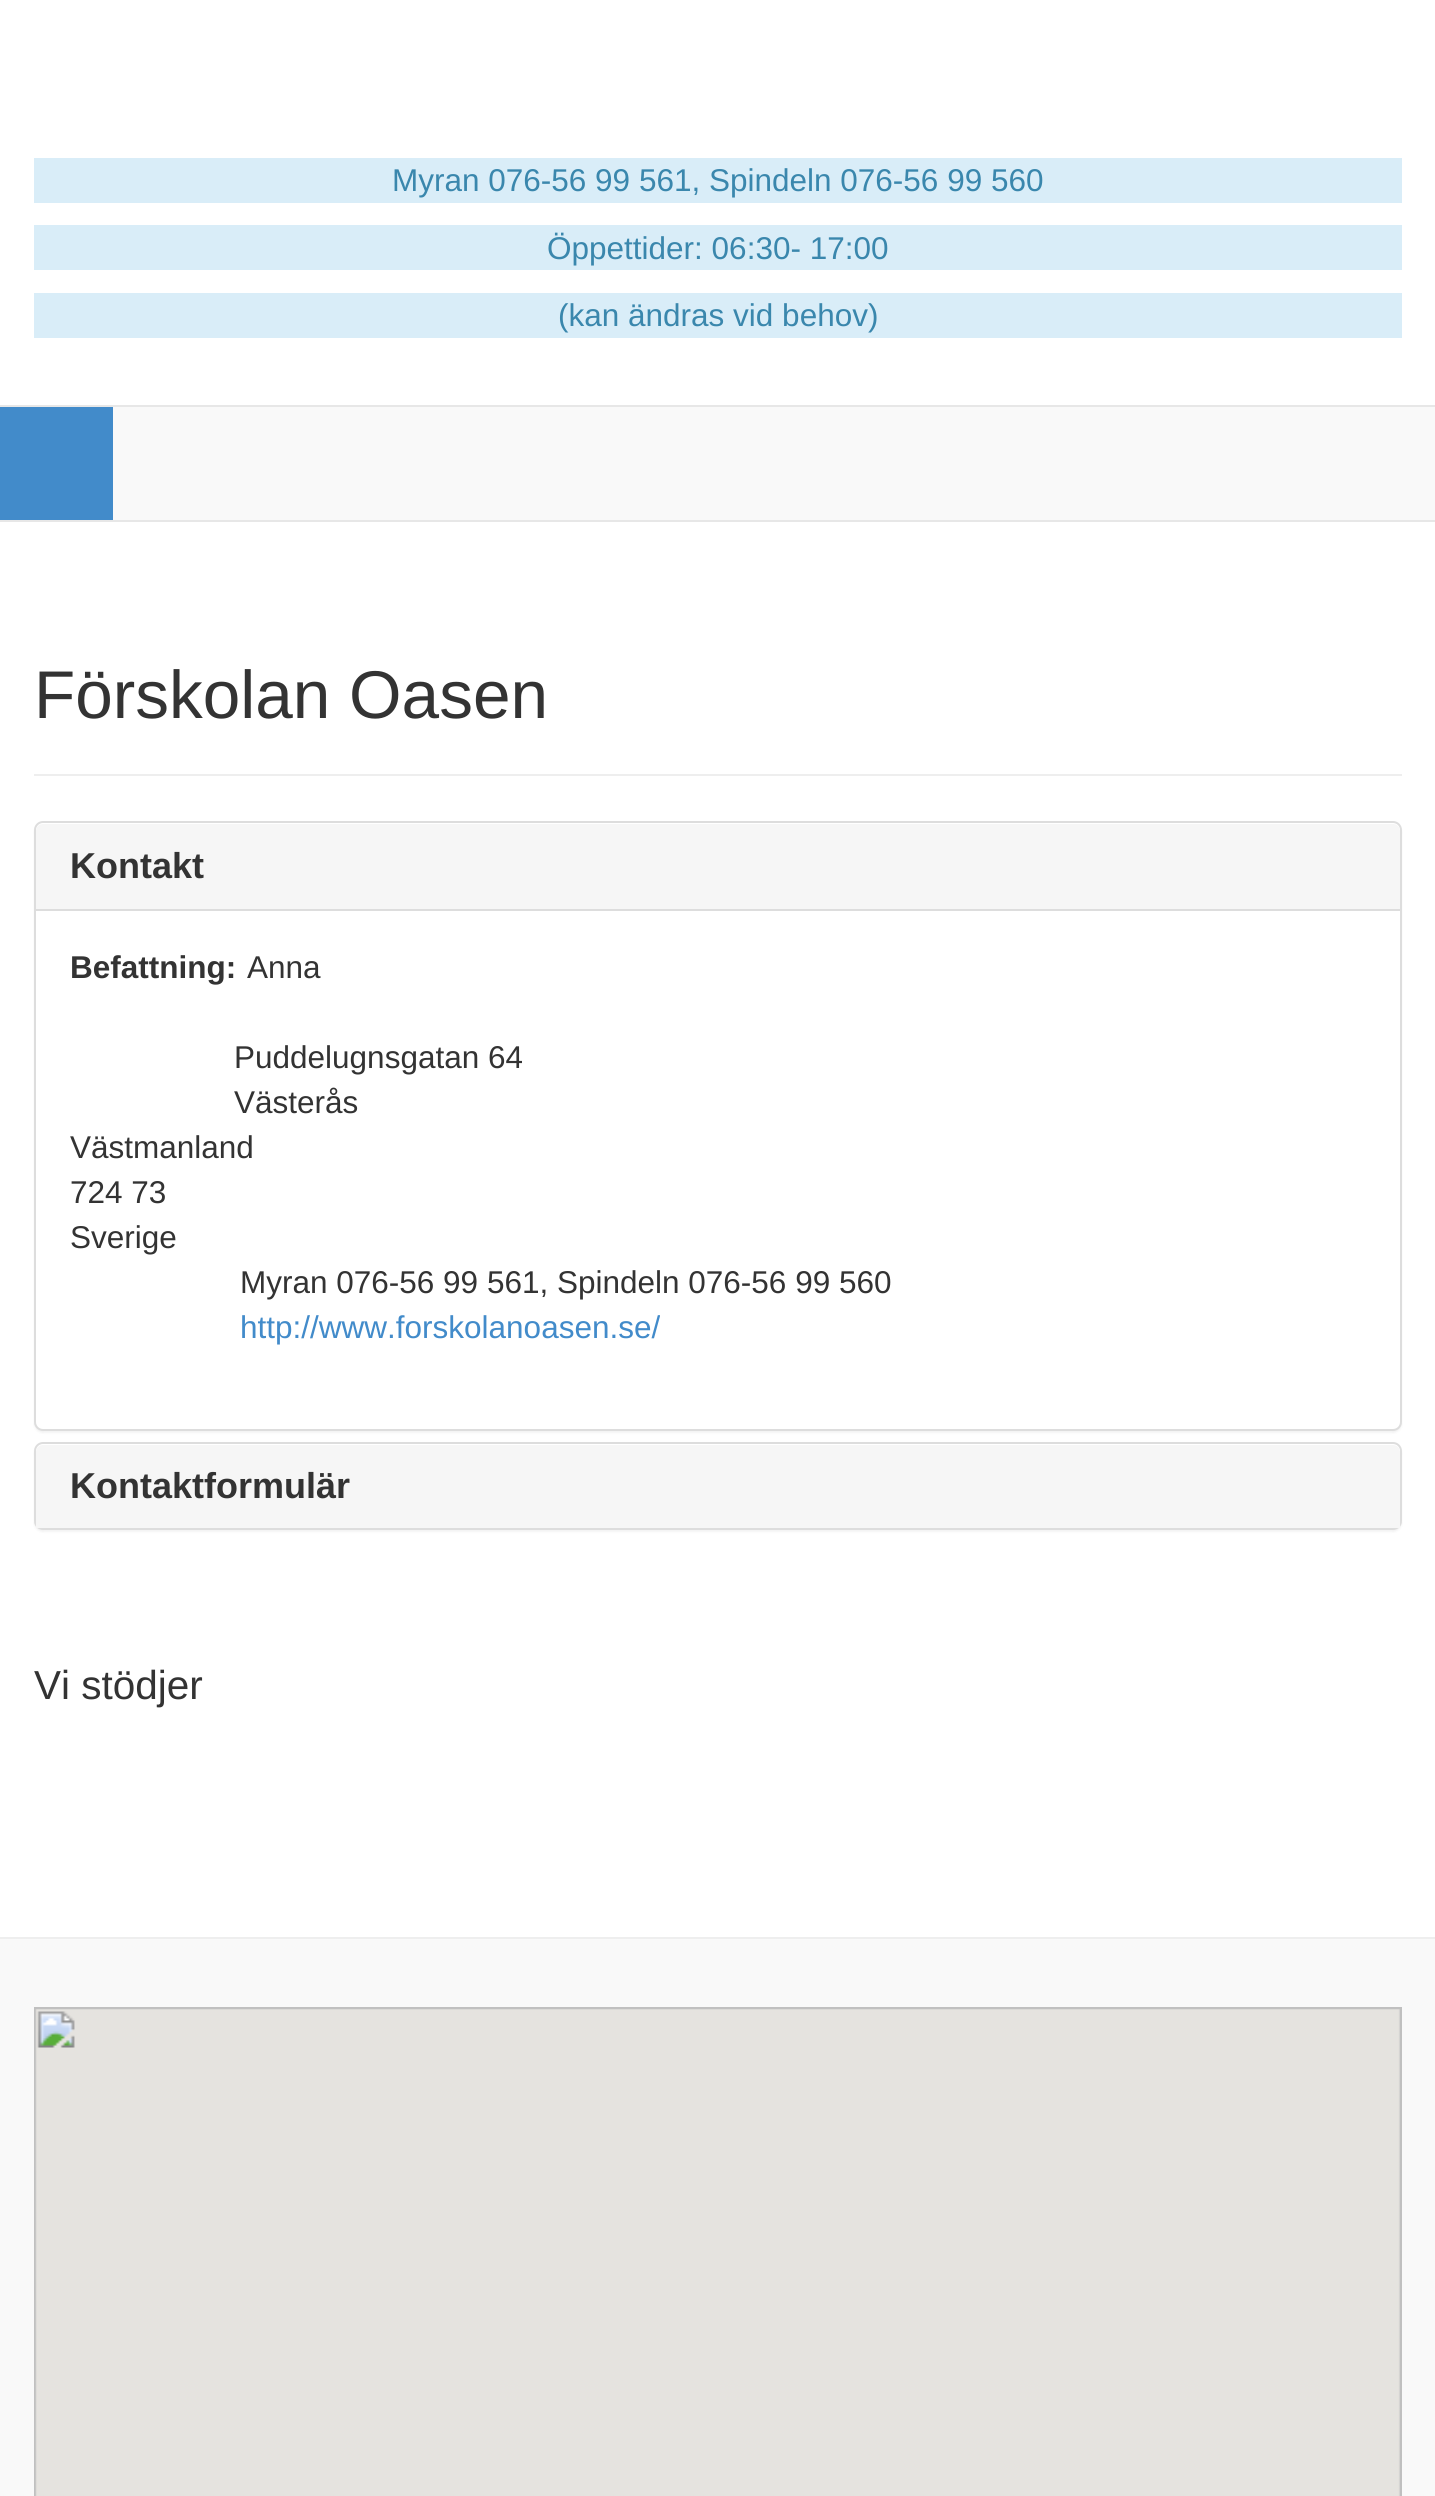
import math
import cairo

surface = cairo.ImageSurface(cairo.FORMAT_RGB24, 1435, 2496)
ctx = cairo.Context(surface)
options = cairo.FontOptions()
options.set_hint_metrics(cairo.HINT_METRICS_OFF)
options.set_hint_style(cairo.HINT_STYLE_NONE)
ctx.set_font_options(options)
ctx.set_miter_limit(4)


def round_rect(x, y, w, h, r):
    ctx.new_sub_path()
    for i, (u, v) in enumerate([(x + w - r, y + h - r), (x + r, y + h - r), (x + r, y + r), (x + w - r, y + r)]):
        ctx.arc(u, v, r, i * math.pi / 2, (i + 1) * math.pi / 2)
    ctx.close_path()


def shadow(x, y, w, h, r, blur, alpha):
    ctx.push_group_with_content(cairo.CONTENT_ALPHA)
    ctx.set_operator(cairo.OPERATOR_SOURCE)
    for i in range(15, -16, -2):
        e = blur * i / 6
        if min(w, h) + 2 * e > 0:
            ctx.set_source_rgba(0, 0, 0, alpha * math.erfc((i - 1) / 8.5) / 2)
            round_rect(x - e, y - e, w + 2 * e, h + 2 * e, max(0, min(r + e + blur * .6, min(w, h) / 2 + e)))
            ctx.fill()
    ctx.mask(ctx.pop_group())


def picture(path, x, y, w, h):
    ctx.save()
    ctx.set_source_surface(cairo.ImageSurface.create_from_png(path), x, y)
    ctx.rectangle(x, y, w, h)
    ctx.fill()
    ctx.restore()


ctx.set_source_rgb(1, 1, 1)
ctx.paint()
ctx.set_source_rgb(0.851, 0.929, 0.969)
ctx.rectangle(34, 158, 1368, 45)
ctx.fill()
ctx.select_font_face("Liberation Sans")
ctx.set_font_size(31.5)
ctx.set_source_rgb(0.227, 0.529, 0.678)
ctx.move_to(392, 191)
ctx.show_text("Myran 076-56 99 561, Spindeln 076-56 99 560")
ctx.set_source_rgb(0.851, 0.929, 0.969)
ctx.rectangle(34, 225, 1368, 45)
ctx.fill()
ctx.set_source_rgb(0.227, 0.529, 0.678)
ctx.move_to(547, 259)
ctx.show_text("Öppettider: 06:30- 17:00")
ctx.set_source_rgb(0.851, 0.929, 0.969)
ctx.rectangle(34, 293, 1368, 45)
ctx.fill()
ctx.set_source_rgb(0.227, 0.529, 0.678)
ctx.move_to(558, 326)
ctx.show_text("(kan ändras vid behov)")
ctx.set_source_rgb(0.973, 0.973, 0.973)
ctx.rectangle(113, 407, 1322, 113)
ctx.fill()
ctx.set_source_rgb(0.906, 0.906, 0.906)
ctx.rectangle(0, 405, 1435, 2)
ctx.fill()
ctx.rectangle(0, 520, 1435, 2)
ctx.fill()
ctx.set_source_rgb(0.259, 0.545, 0.792)
ctx.rectangle(0, 407, 113, 113)
ctx.fill()
ctx.set_source_rgb(0.933, 0.933, 0.933)
ctx.rectangle(34, 774, 1368, 2)
ctx.fill()
ctx.set_font_size(67.5)
ctx.set_source_rgb(0.2, 0.2, 0.2)
ctx.move_to(34, 718)
ctx.show_text("Förskolan Oasen")
ctx.set_source_rgb(0, 0, 0)
shadow(34, 824, 1368, 609, 9, 1, 0.05)
ctx.set_source_rgb(1, 1, 1)
round_rect(35, 822, 1366, 608, 8)
ctx.fill_preserve()
ctx.set_source_rgb(0.867, 0.867, 0.867)
ctx.stroke()
ctx.set_source_rgb(0.961, 0.961, 0.961)
ctx.new_path()
ctx.move_to(43, 824)
ctx.line_to(1393, 824)
ctx.curve_to(1397, 824, 1400, 827, 1400, 831)
ctx.line_to(1400, 909)
ctx.line_to(36, 909)
ctx.line_to(36, 831)
ctx.curve_to(36, 827, 39, 824, 43, 824)
ctx.close_path()
ctx.fill()
ctx.select_font_face("Liberation Sans", cairo.FONT_SLANT_NORMAL, cairo.FONT_WEIGHT_BOLD)
ctx.set_font_size(36)
ctx.set_source_rgb(0.2, 0.2, 0.2)
ctx.move_to(70, 878)
ctx.show_text("Kontakt")
ctx.set_source_rgb(0.867, 0.867, 0.867)
ctx.rectangle(36, 909, 1364, 2)
ctx.fill()
ctx.set_font_size(31.5)
ctx.set_source_rgb(0.2, 0.2, 0.2)
ctx.move_to(70, 978)
ctx.show_text("Befattning:")
ctx.select_font_face("Liberation Sans")
ctx.move_to(247, 978)
ctx.show_text("Anna")
ctx.move_to(234, 1068)
ctx.show_text("Puddelugnsgatan 64")
ctx.move_to(234, 1113)
ctx.show_text("Västerås")
ctx.move_to(70, 1158)
ctx.show_text("Västmanland")
ctx.move_to(70, 1203)
ctx.show_text("724 73")
ctx.move_to(70, 1248)
ctx.show_text("Sverige")
ctx.move_to(240, 1293)
ctx.show_text("Myran 076-56 99 561, Spindeln 076-56 99 560")
ctx.set_source_rgb(0.259, 0.545, 0.792)
ctx.move_to(240, 1338)
ctx.show_text("http://www.forskolanoasen.se/")
ctx.set_source_rgb(0, 0, 0)
shadow(34, 1445, 1368, 87, 9, 1, 0.05)
ctx.set_source_rgb(1, 1, 1)
round_rect(35, 1443, 1366, 86, 8)
ctx.fill_preserve()
ctx.set_source_rgb(0.867, 0.867, 0.867)
ctx.stroke()
ctx.set_source_rgb(0.961, 0.961, 0.961)
ctx.new_path()
ctx.move_to(43, 1445)
ctx.line_to(1393, 1445)
ctx.curve_to(1397, 1445, 1400, 1448, 1400, 1452)
ctx.line_to(1400, 1528)
ctx.line_to(36, 1528)
ctx.line_to(36, 1452)
ctx.curve_to(36, 1448, 39, 1445, 43, 1445)
ctx.close_path()
ctx.fill()
ctx.select_font_face("Liberation Sans", cairo.FONT_SLANT_NORMAL, cairo.FONT_WEIGHT_BOLD)
ctx.set_font_size(36)
ctx.set_source_rgb(0.2, 0.2, 0.2)
ctx.move_to(70, 1498)
ctx.show_text("Kontaktformulär")
ctx.select_font_face("Liberation Sans")
ctx.set_font_size(40.5)
ctx.move_to(34, 1699)
ctx.show_text("Vi stödjer")
ctx.set_source_rgb(0.973, 0.973, 0.973)
ctx.rectangle(0, 1939, 1435, 557)
ctx.fill()
ctx.set_source_rgb(0.933, 0.933, 0.933)
ctx.rectangle(0, 1937, 1435, 2)
ctx.fill()
picture("img1.png", 34, 2007, 1368, 489)
surface.write_to_png("page.png")
